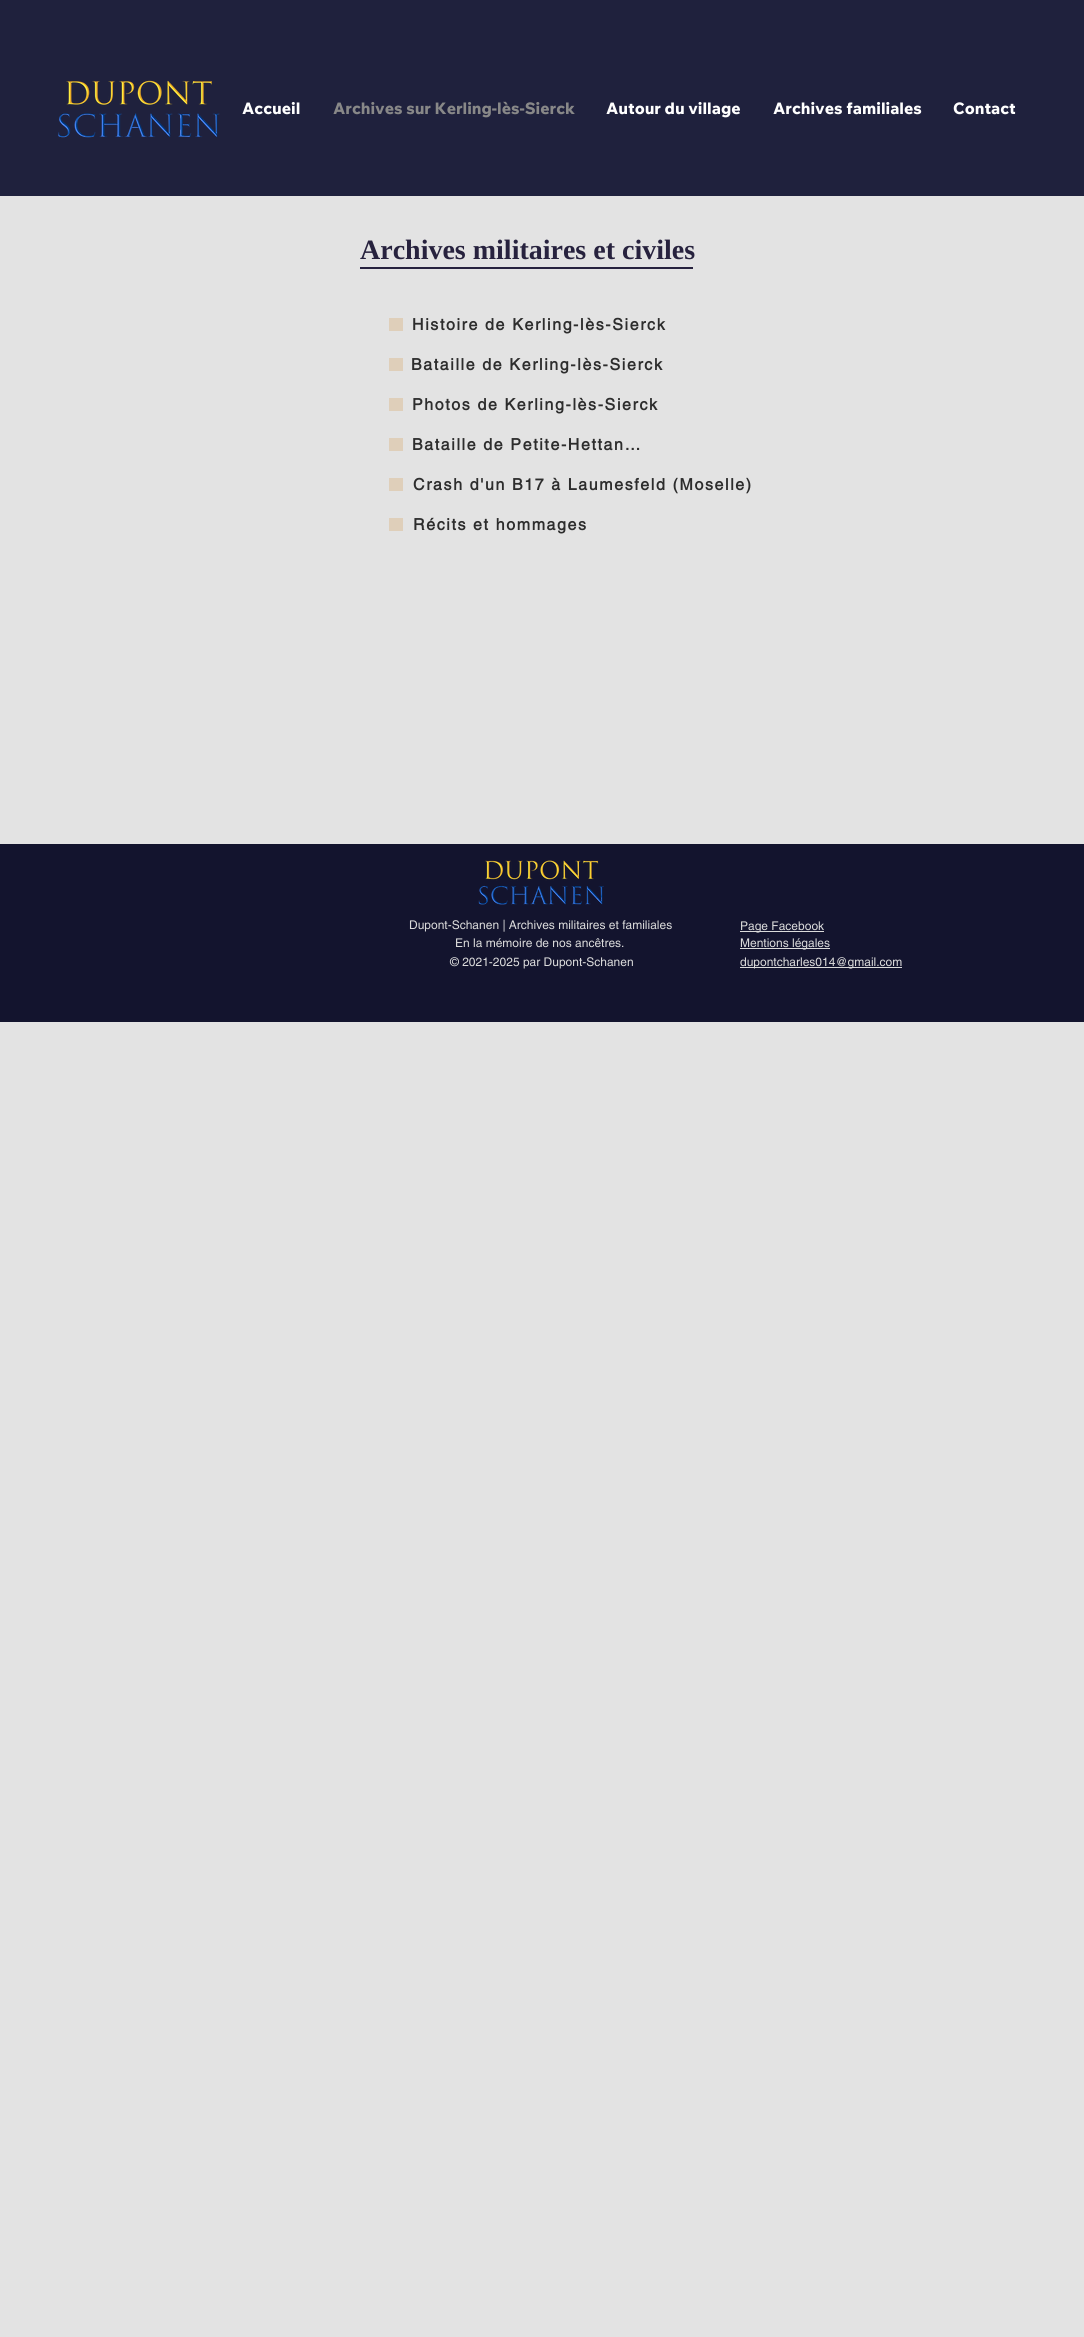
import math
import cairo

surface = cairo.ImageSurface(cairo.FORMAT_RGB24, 1084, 2337)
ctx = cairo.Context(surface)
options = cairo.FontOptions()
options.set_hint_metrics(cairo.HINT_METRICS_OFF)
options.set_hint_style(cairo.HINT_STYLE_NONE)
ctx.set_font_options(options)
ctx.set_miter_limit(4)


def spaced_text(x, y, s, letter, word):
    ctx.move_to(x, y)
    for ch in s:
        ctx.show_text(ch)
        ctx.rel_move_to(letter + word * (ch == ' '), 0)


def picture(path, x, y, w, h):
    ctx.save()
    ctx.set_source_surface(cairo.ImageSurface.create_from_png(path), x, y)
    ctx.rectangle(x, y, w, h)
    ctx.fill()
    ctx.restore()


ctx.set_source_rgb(0.89, 0.89, 0.89)
ctx.paint()
ctx.set_source_rgb(0.122, 0.129, 0.239)
ctx.rectangle(0, 0, 1084, 196)
ctx.fill()
picture("img1.png", 58, 80, 162, 58)
ctx.select_font_face("Wix Madefor Text ExtraBold")
ctx.set_font_size(16)
ctx.set_source_rgb(1, 1, 1)
ctx.move_to(242, 114)
ctx.show_text("Accueil")
ctx.set_source_rgb(0.533, 0.533, 0.533)
ctx.move_to(333, 114)
ctx.show_text("Archives sur Kerling-lès-Sierck")
ctx.set_source_rgb(1, 1, 1)
ctx.move_to(606, 114)
ctx.show_text("Autour du village")
ctx.move_to(773, 114)
ctx.show_text("Archives familiales")
ctx.move_to(953, 114)
ctx.show_text("Contact")
ctx.select_font_face("Liberation Serif", cairo.FONT_SLANT_NORMAL, cairo.FONT_WEIGHT_BOLD)
ctx.set_font_size(28)
ctx.set_source_rgb(0.153, 0.133, 0.243)
ctx.move_to(360, 259)
ctx.show_text("Archives militaires et civiles")
ctx.rectangle(360, 267, 333, 2)
ctx.fill()
ctx.set_source_rgb(0.875, 0.812, 0.729)
ctx.rectangle(389, 318, 14, 13)
ctx.fill()
ctx.select_font_face("helvetica", cairo.FONT_SLANT_NORMAL, cairo.FONT_WEIGHT_BOLD)
ctx.set_font_size(16)
ctx.set_source_rgb(0.176, 0.176, 0.176)
spaced_text(412, 330, "Histoire de Kerling-lès-Sierck", 1.6, 0)
ctx.set_source_rgb(0.875, 0.812, 0.729)
ctx.rectangle(389, 358, 14, 13)
ctx.fill()
ctx.set_source_rgb(0.176, 0.176, 0.176)
spaced_text(411, 370, "Bataille de Kerling-lès-Sierck", 1.6, 0)
ctx.set_source_rgb(0.875, 0.812, 0.729)
ctx.rectangle(389, 398, 14, 13)
ctx.fill()
ctx.set_source_rgb(0.176, 0.176, 0.176)
spaced_text(412, 410, "Photos de Kerling-lès-Sierck", 1.6, 0)
ctx.set_source_rgb(0.875, 0.812, 0.729)
ctx.rectangle(389, 438, 14, 13)
ctx.fill()
ctx.set_source_rgb(0.176, 0.176, 0.176)
spaced_text(412, 450, "Bataille de Petite-Hettan…", 1.6, 0)
ctx.set_source_rgb(0.875, 0.812, 0.729)
ctx.rectangle(389, 478, 14, 13)
ctx.fill()
ctx.set_source_rgb(0.176, 0.176, 0.176)
spaced_text(413, 490, "Crash d'un B17 à Laumesfeld (Moselle)", 1.6, 0)
ctx.set_source_rgb(0.875, 0.812, 0.729)
ctx.rectangle(389, 518, 14, 13)
ctx.fill()
ctx.set_source_rgb(0.176, 0.176, 0.176)
spaced_text(413, 530, "Récits et hommages", 1.6, 0)
ctx.set_source_rgb(0.075, 0.082, 0.18)
ctx.rectangle(0, 844, 1084, 178)
ctx.fill()
picture("img2.png", 478, 860, 126, 45)
ctx.select_font_face("helvetica")
ctx.set_font_size(12)
ctx.set_source_rgb(0.859, 0.859, 0.859)
ctx.move_to(409, 929)
ctx.show_text("Dupont-Schanen | Archives militaires et familiales")
ctx.rectangle(740, 931, 84, 1)
ctx.fill()
ctx.move_to(740, 930)
ctx.show_text("Page Facebook")
ctx.rectangle(740, 948, 90, 1)
ctx.fill()
ctx.move_to(740, 947)
ctx.show_text("Mentions légales")
ctx.rectangle(740, 967, 162, 1)
ctx.fill()
ctx.move_to(740, 966)
ctx.show_text("dupontcharles014@gmail.com")
ctx.move_to(455, 947)
ctx.show_text("En la mémoire de nos ancêtres.")
ctx.move_to(450, 966)
ctx.show_text("© 2021-2025 par Dupont-Schanen")
surface.write_to_png("page.png")
